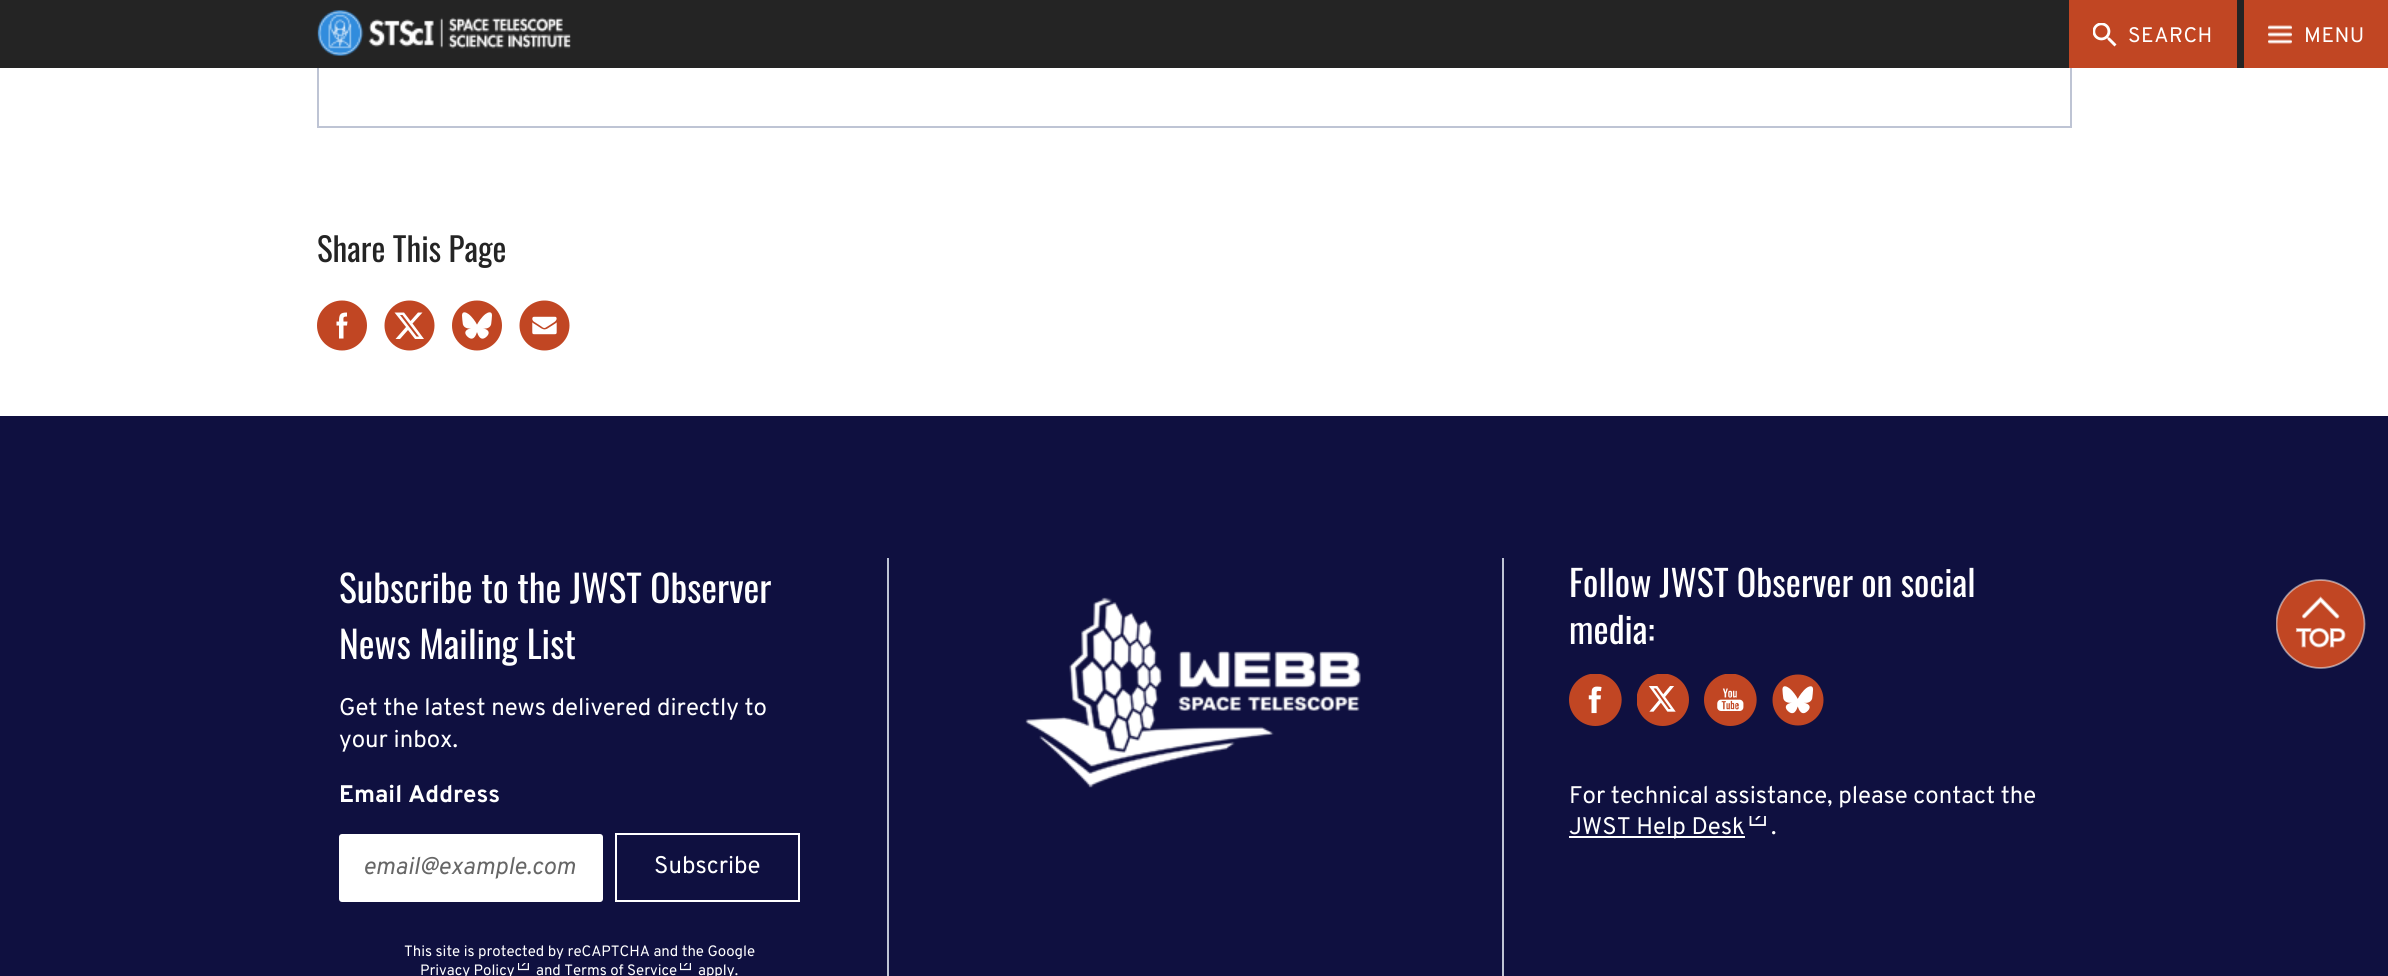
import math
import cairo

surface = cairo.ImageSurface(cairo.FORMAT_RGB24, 2388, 976)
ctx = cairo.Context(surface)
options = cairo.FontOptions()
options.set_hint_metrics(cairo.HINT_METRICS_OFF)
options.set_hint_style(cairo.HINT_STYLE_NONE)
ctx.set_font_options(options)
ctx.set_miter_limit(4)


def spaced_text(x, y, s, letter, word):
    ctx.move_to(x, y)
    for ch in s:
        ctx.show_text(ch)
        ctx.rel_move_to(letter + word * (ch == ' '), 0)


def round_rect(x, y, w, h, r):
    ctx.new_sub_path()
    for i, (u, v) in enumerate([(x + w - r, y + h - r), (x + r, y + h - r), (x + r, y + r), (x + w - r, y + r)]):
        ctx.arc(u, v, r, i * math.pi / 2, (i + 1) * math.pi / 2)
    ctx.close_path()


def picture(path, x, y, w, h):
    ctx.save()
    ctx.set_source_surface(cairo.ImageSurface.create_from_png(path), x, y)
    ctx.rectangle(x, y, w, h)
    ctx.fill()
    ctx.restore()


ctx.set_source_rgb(1, 1, 1)
ctx.paint()
ctx.rectangle(318, -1, 1753, 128)
ctx.set_source_rgb(0.745, 0.769, 0.831)
ctx.stroke()
ctx.set_source_rgb(0.141, 0.141, 0.141)
ctx.rectangle(0, 0, 2244, 68)
ctx.fill()
picture("img1.png", 317, 10, 254, 46)
ctx.set_source_rgb(0.757, 0.275, 0.137)
ctx.rectangle(2069, 0, 168, 68)
ctx.fill()
picture("img2.png", 2093, 23, 24, 24)
ctx.select_font_face("Overpass")
ctx.set_font_size(21)
ctx.set_source_rgb(1, 1, 1)
spaced_text(2128, 42, "SEARCH", 0.5, 0)
ctx.set_source_rgb(0.757, 0.275, 0.137)
ctx.rectangle(2244, 0, 144, 68)
ctx.fill()
picture("img3.png", 2268, 25, 24, 19)
ctx.set_source_rgb(1, 1, 1)
spaced_text(2304, 42, "MENU", 0.5, 0)
ctx.select_font_face("Oswald")
ctx.set_font_size(33)
ctx.set_source_rgb(0.141, 0.141, 0.141)
ctx.move_to(317, 262)
ctx.show_text("Share This Page")
ctx.set_source_rgb(0.757, 0.275, 0.137)
ctx.new_path()
ctx.arc(342, 325.5, 25, 0, 2 * math.pi)
ctx.fill()
ctx.set_source_rgb(1, 1, 1)
ctx.new_path()
ctx.move_to(339, 338.5)
ctx.line_to(343.5, 338.5)
ctx.line_to(343.5, 325.5)
ctx.line_to(347, 325.5)
ctx.line_to(347.5, 321.5)
ctx.line_to(343.5, 321.5)
ctx.curve_to(343.5, 318, 342.5, 316.5, 347, 316.5)
ctx.line_to(347, 312.5)
ctx.curve_to(340, 312.5, 339, 314.5, 339, 321.5)
ctx.line_to(336.5, 321.5)
ctx.line_to(336.5, 325.5)
ctx.line_to(339, 325.5)
ctx.close_path()
ctx.fill()
ctx.set_source_rgb(0.757, 0.275, 0.137)
ctx.arc(409.5, 325.5, 25, 0, 2 * math.pi)
ctx.fill()
ctx.set_source_rgb(1, 1, 1)
ctx.new_path()
ctx.move_to(418, 312.5)
ctx.line_to(422.5, 312.5)
ctx.line_to(412.5, 323.5)
ctx.line_to(424, 339)
ctx.line_to(415, 339)
ctx.line_to(408, 330)
ctx.line_to(400, 339)
ctx.line_to(395.5, 339)
ctx.line_to(406, 327)
ctx.line_to(394.5, 312.5)
ctx.line_to(404, 312.5)
ctx.line_to(410.5, 321)
ctx.close_path()
ctx.move_to(416.5, 336.5)
ctx.line_to(419, 336.5)
ctx.line_to(402.5, 315)
ctx.line_to(400, 315)
ctx.close_path()
ctx.fill()
picture("img4.png", 452, 300, 50, 51)
picture("img5.png", 519, 300, 51, 51)
ctx.set_source_rgb(0.059, 0.063, 0.251)
ctx.rectangle(0, 416, 2388, 560)
ctx.fill()
ctx.set_font_size(37.5)
ctx.set_source_rgb(1, 1, 1)
ctx.move_to(339, 603)
ctx.show_text("Subscribe to the JWST Observer")
ctx.move_to(339, 659)
ctx.show_text("News Mailing List")
ctx.select_font_face("Overpass")
ctx.set_font_size(24)
ctx.move_to(339, 715)
ctx.show_text("Get the latest news delivered directly to")
ctx.move_to(339, 747)
ctx.show_text("your inbox.")
ctx.select_font_face("Overpass", cairo.FONT_SLANT_NORMAL, cairo.FONT_WEIGHT_BOLD)
ctx.move_to(339, 802)
ctx.show_text("Email Address")
round_rect(340, 835, 262, 66, 2)
ctx.fill_preserve()
ctx.stroke()
ctx.select_font_face("Overpass", cairo.FONT_SLANT_ITALIC)
ctx.set_source_rgb(0.4, 0.4, 0.4)
ctx.move_to(363, 874)
ctx.show_text("email@example.com")
ctx.rectangle(616, 834, 183, 67)
ctx.set_source_rgb(1, 1, 1)
ctx.stroke()
ctx.select_font_face("Overpass")
ctx.move_to(654, 873)
ctx.show_text("Subscribe")
ctx.set_font_size(15)
ctx.move_to(404, 956)
ctx.show_text("This site is protected by reCAPTCHA and the Google")
ctx.move_to(420, 975)
ctx.show_text("Privacy Policy")
picture("img6.png", 518, 963, 11, 8)
ctx.move_to(536, 975)
ctx.show_text("and Terms of Service")
picture("img6.png", 680, 963, 11, 8)
ctx.move_to(698, 975)
ctx.show_text("apply.")
ctx.set_source_rgb(0.745, 0.769, 0.831)
ctx.rectangle(887, 558, 2, 418)
ctx.fill()
picture("img7.png", 1025, 597, 336, 191)
ctx.rectangle(1502, 558, 2, 418)
ctx.fill()
ctx.select_font_face("Oswald")
ctx.set_font_size(36)
ctx.set_source_rgb(1, 1, 1)
ctx.move_to(1569, 597)
ctx.show_text("Follow JWST Observer on social")
ctx.move_to(1569, 644)
ctx.show_text("media:")
picture("img8.png", 1569, 674, 53, 52)
picture("img9.png", 1637, 674, 52, 52)
picture("img10.png", 1704, 674, 53, 52)
picture("img11.png", 1772, 674, 52, 52)
ctx.select_font_face("Overpass")
ctx.set_font_size(24)
ctx.move_to(1569, 803)
ctx.show_text("For technical assistance, please contact the")
ctx.rectangle(1569, 836, 176, 2)
ctx.fill()
ctx.move_to(1569, 834)
ctx.show_text("JWST Help Desk")
picture("img12.png", 1749, 816, 17, 10)
ctx.move_to(1771, 834)
ctx.show_text(".")
picture("img13.png", 2276, 579, 90, 90)
surface.write_to_png("page.png")
